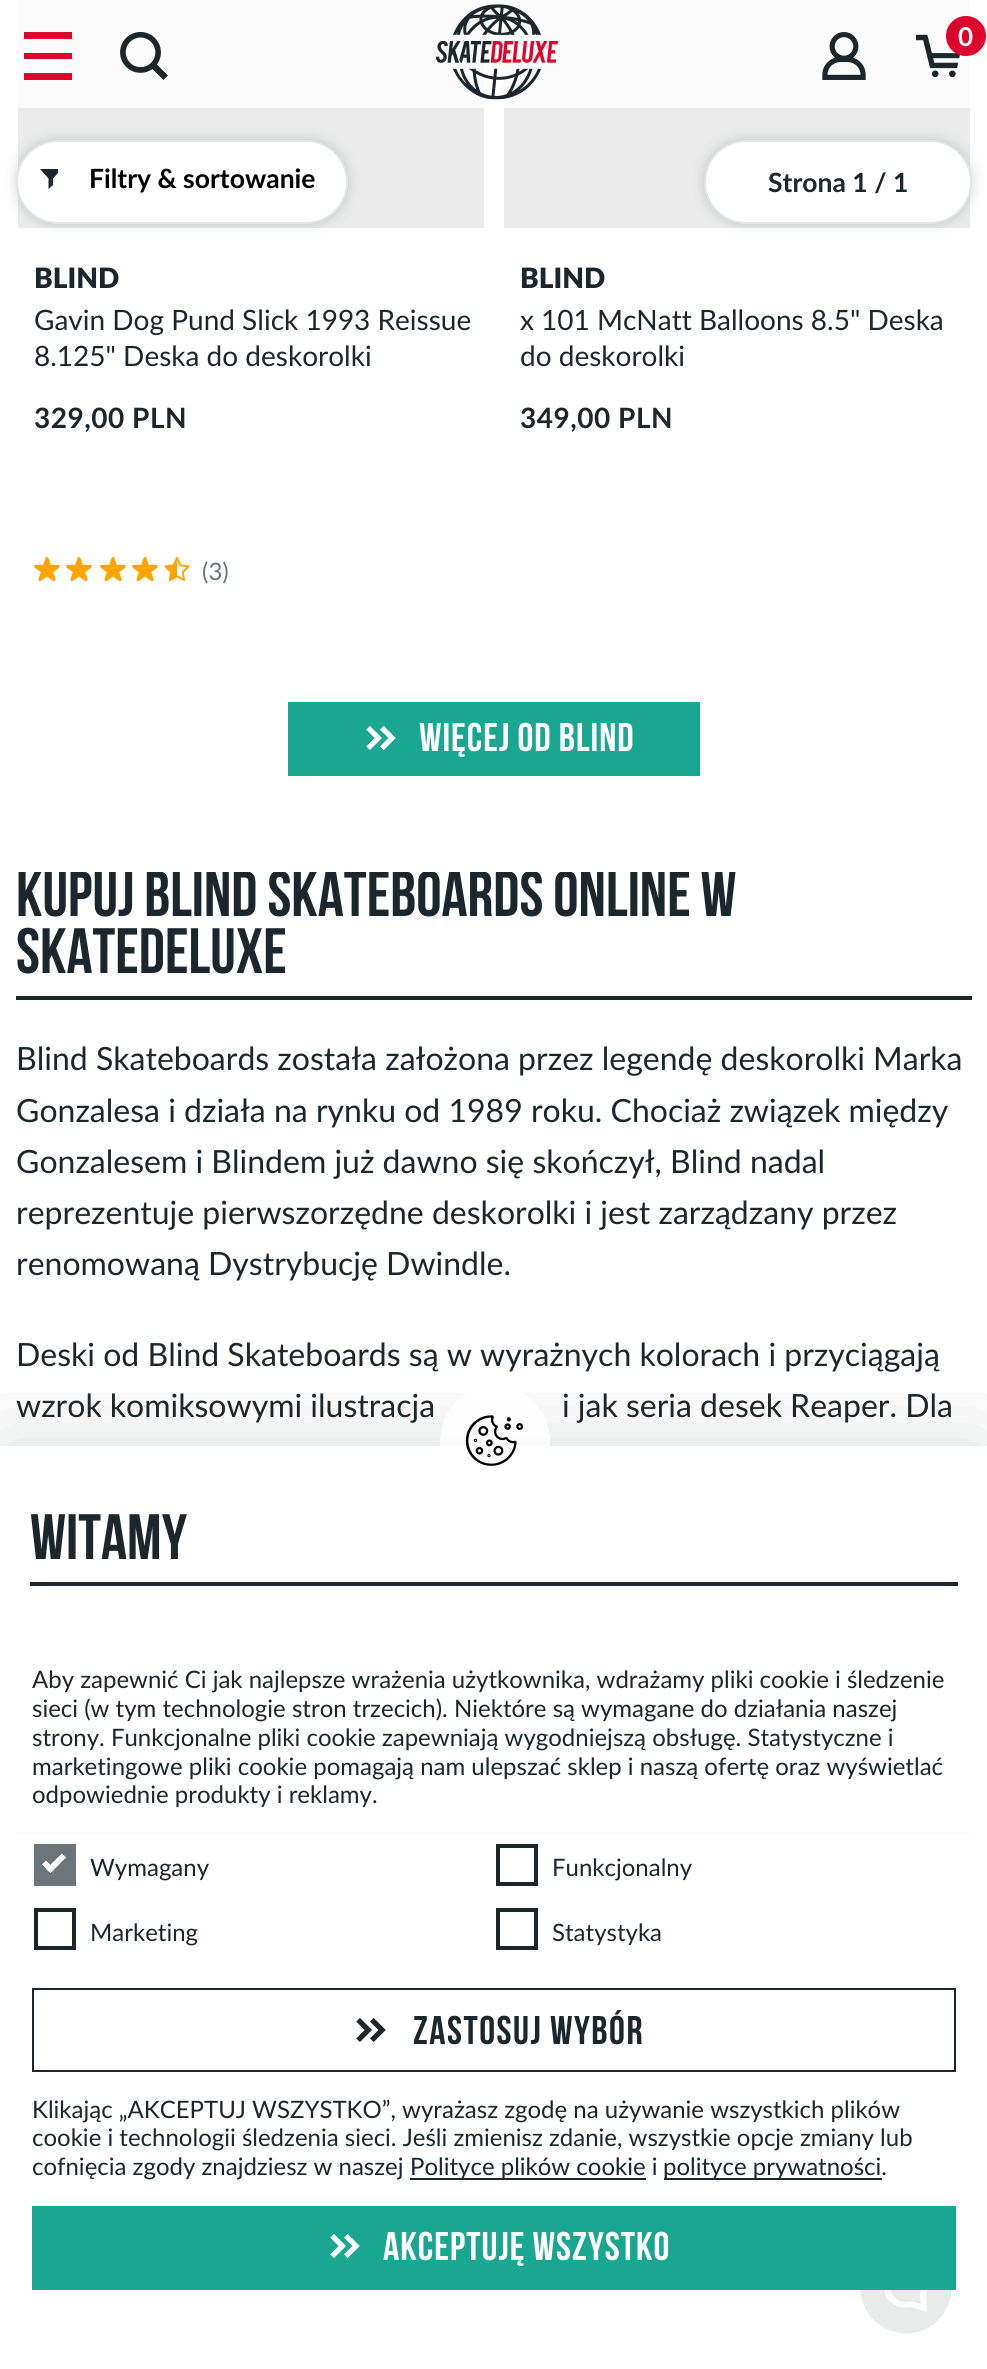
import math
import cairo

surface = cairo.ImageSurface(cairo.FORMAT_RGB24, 987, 2369)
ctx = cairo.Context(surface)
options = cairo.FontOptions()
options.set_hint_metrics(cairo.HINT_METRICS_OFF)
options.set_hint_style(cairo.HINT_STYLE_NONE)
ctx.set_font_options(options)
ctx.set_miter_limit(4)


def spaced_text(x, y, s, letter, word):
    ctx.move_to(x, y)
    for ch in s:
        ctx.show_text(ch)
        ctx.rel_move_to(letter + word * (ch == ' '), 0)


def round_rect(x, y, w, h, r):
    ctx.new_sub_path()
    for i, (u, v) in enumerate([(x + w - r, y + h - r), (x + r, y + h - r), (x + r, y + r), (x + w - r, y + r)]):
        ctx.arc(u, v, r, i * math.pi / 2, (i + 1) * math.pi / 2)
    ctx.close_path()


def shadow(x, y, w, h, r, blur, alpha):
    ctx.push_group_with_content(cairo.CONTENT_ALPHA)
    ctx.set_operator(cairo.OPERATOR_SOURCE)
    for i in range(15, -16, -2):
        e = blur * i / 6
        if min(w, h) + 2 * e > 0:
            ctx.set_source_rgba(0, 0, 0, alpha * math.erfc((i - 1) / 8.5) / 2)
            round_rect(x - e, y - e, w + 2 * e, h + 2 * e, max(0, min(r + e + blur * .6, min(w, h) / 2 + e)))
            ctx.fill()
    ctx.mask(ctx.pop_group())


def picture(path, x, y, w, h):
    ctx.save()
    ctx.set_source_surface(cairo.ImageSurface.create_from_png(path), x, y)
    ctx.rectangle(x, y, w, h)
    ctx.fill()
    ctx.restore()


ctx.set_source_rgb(1, 1, 1)
ctx.paint()
ctx.set_source_rgb(0.984, 0.984, 0.984)
ctx.rectangle(18, 0, 466, 108)
ctx.fill()
ctx.set_source_rgb(0.867, 0.02, 0.169)
ctx.new_path()
ctx.move_to(24, 32)
ctx.line_to(72, 32)
ctx.line_to(72, 39)
ctx.line_to(24, 39)
ctx.close_path()
ctx.move_to(24, 53)
ctx.line_to(72, 53)
ctx.line_to(72, 59)
ctx.line_to(24, 59)
ctx.close_path()
ctx.move_to(24, 73)
ctx.line_to(72, 73)
ctx.line_to(72, 80)
ctx.line_to(24, 80)
ctx.close_path()
ctx.fill()
picture("img1.png", 120, 32, 48, 48)
ctx.set_source_rgb(0.984, 0.984, 0.984)
ctx.rectangle(504, 0, 466, 108)
ctx.fill()
picture("img2.png", 436, 4, 122, 96)
picture("img3.png", 822, 32, 44, 48)
picture("img4.png", 916, 34, 44, 44)
ctx.set_source_rgb(0.867, 0.02, 0.169)
ctx.arc(966, 36, 20, 0, 2 * math.pi)
ctx.fill()
ctx.select_font_face("Lato", cairo.FONT_SLANT_NORMAL, cairo.FONT_WEIGHT_BOLD)
ctx.set_font_size(26)
ctx.set_source_rgb(1, 1, 1)
spaced_text(958, 46, "0", 0.5, 0)
ctx.set_source_rgb(0.918, 0.918, 0.918)
ctx.rectangle(18, 108, 466, 120)
ctx.fill()
ctx.set_source_rgb(0.106, 0.153, 0.173)
shadow(16, 140, 332, 84, 42, 6, 0.2)
ctx.set_source_rgb(1, 1, 1)
round_rect(17, 141, 330, 82, 41)
ctx.fill_preserve()
ctx.set_source_rgb(0.894, 0.898, 0.902)
ctx.stroke()
ctx.save()
ctx.rectangle(32, 166, 26, 26)
ctx.clip()
ctx.set_source_rgb(0.106, 0.153, 0.173)
ctx.new_path()
ctx.move_to(40, 169)
ctx.line_to(61.5, 169)
ctx.line_to(53, 178.5)
ctx.line_to(53, 185)
ctx.line_to(48.5, 189)
ctx.line_to(48.5, 178.5)
ctx.close_path()
ctx.fill()
ctx.restore()
ctx.set_font_size(26.5)
ctx.set_source_rgb(0, 0, 0)
ctx.move_to(89, 188)
ctx.show_text("Filtry & sortowanie")
ctx.set_source_rgb(0.918, 0.918, 0.918)
ctx.rectangle(504, 108, 466, 120)
ctx.fill()
ctx.set_source_rgb(0.106, 0.153, 0.173)
shadow(704, 140, 268, 84, 42, 6, 0.2)
ctx.set_source_rgb(1, 1, 1)
round_rect(705, 141, 266, 82, 41)
ctx.fill_preserve()
ctx.set_source_rgb(0.894, 0.898, 0.902)
ctx.stroke()
ctx.set_source_rgb(0.106, 0.153, 0.173)
ctx.move_to(768, 192)
ctx.show_text("Strona 1 / 1")
ctx.select_font_face("Lato Black")
ctx.set_font_size(28)
ctx.move_to(34, 288)
ctx.show_text("BLIND")
ctx.select_font_face("Lato")
ctx.move_to(34, 330)
ctx.show_text("Gavin Dog Pund Slick 1993 Reissue")
ctx.move_to(34, 366)
ctx.show_text("8.125\" Deska do deskorolki")
ctx.select_font_face("Lato", cairo.FONT_SLANT_NORMAL, cairo.FONT_WEIGHT_BOLD)
spaced_text(34, 428, "329,00 PLN", 0.5, 0)
picture("img5.png", 34, 556, 26, 26)
picture("img5.png", 66, 556, 26, 26)
picture("img5.png", 100, 556, 26, 26)
picture("img5.png", 132, 556, 26, 26)
picture("img6.png", 164, 556, 26, 26)
ctx.select_font_face("Lato")
ctx.set_font_size(24)
ctx.set_source_rgb(0.424, 0.459, 0.478)
ctx.move_to(202, 580)
ctx.show_text("(3)")
ctx.select_font_face("Lato Black")
ctx.set_font_size(28)
ctx.set_source_rgb(0.106, 0.153, 0.173)
ctx.move_to(520, 288)
ctx.show_text("BLIND")
ctx.select_font_face("Lato")
ctx.move_to(520, 330)
ctx.show_text("x 101 McNatt Balloons 8.5\" Deska")
ctx.move_to(520, 366)
ctx.show_text("do deskorolki")
ctx.select_font_face("Lato", cairo.FONT_SLANT_NORMAL, cairo.FONT_WEIGHT_BOLD)
spaced_text(520, 428, "349,00 PLN", 0.5, 0)
ctx.set_source_rgb(0.098, 0.655, 0.569)
ctx.rectangle(288, 702, 412, 74)
ctx.fill()
picture("img7.png", 366, 726, 30, 24)
ctx.select_font_face("Bebas Neue", cairo.FONT_SLANT_NORMAL, cairo.FONT_WEIGHT_BOLD)
ctx.set_font_size(40)
ctx.set_source_rgb(1, 1, 1)
spaced_text(419, 751, "WIĘCEJ OD BLIND", 1, 0)
ctx.set_source_rgb(0.106, 0.153, 0.173)
ctx.rectangle(16, 996, 956, 4)
ctx.fill()
ctx.save()
ctx.rectangle(0, 872, 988, 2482)
ctx.clip()
ctx.set_font_size(64)
ctx.move_to(16, 916)
ctx.show_text("KUPUJ BLIND SKATEBOARDS ONLINE W")
ctx.restore()
ctx.set_font_size(64)
ctx.move_to(16, 973)
ctx.show_text("SKATEDELUXE")
ctx.select_font_face("Lato")
ctx.set_font_size(32)
ctx.move_to(16, 1070)
ctx.show_text("Blind Skateboards została założona przez legendę deskorolki Marka")
ctx.move_to(16, 1122)
ctx.show_text("Gonzalesa i działa na rynku od 1989 roku. Chociaż związek między")
ctx.move_to(16, 1173)
ctx.show_text("Gonzalesem i Blindem już dawno się skończył, Blind nadal")
ctx.move_to(16, 1224)
ctx.show_text("reprezentuje pierwszorzędne deskorolki i jest zarządzany przez")
ctx.move_to(16, 1275)
ctx.show_text("renomowaną Dystrybucję Dwindle.")
ctx.move_to(16, 1366)
ctx.show_text("Deski od Blind Skateboards są w wyrażnych kolorach i przyciągają")
ctx.move_to(16, 1417)
ctx.show_text("wzrok komiksowymi ilustracja")
ctx.move_to(562, 1417)
ctx.show_text("i jak seria desek Reaper. Dla")
ctx.set_source_rgb(0.894, 0.898, 0.902)
ctx.rectangle(16, 1832, 956, 2)
ctx.fill()
ctx.set_source_rgb(0.106, 0.153, 0.173)
ctx.arc(906, 2288, 45.5, 0, 2 * math.pi)
ctx.fill()
ctx.set_source_rgb(1, 1, 1)
ctx.new_path()
ctx.move_to(906, 2270)
ctx.curve_to(918, 2270, 925, 2283, 920, 2293)
ctx.line_to(921, 2304)
ctx.line_to(911, 2301)
ctx.curve_to(895, 2307, 882, 2285, 895, 2274)
ctx.curve_to(898, 2271, 902, 2270, 906, 2270)
ctx.move_to(906, 2264)
ctx.curve_to(882, 2264, 875, 2297, 897, 2306)
ctx.curve_to(901, 2308, 906, 2308, 911, 2307)
ctx.line_to(927, 2312)
ctx.line_to(926, 2294)
ctx.line_to(928, 2286)
ctx.curve_to(928, 2274, 918, 2264, 906, 2264)
ctx.close_path()
ctx.fill()
ctx.save()
ctx.rectangle(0, 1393, 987, 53)
ctx.clip()
ctx.set_source_rgb(0.106, 0.153, 0.173)
shadow(0, 1446, 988, 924, 0, 48, 0.15)
ctx.restore()
ctx.set_source_rgba(1, 1, 1, 0.9)
ctx.rectangle(16, 1832, 956, 502)
ctx.fill()
ctx.save()
round_rect(440, 1386, 110, 110, 55)
ctx.clip()
ctx.new_path()
ctx.move_to(495, 1386)
ctx.curve_to(525.5, 1386, 550, 1410.5, 550, 1441)
ctx.line_to(550, 1446)
ctx.line_to(440, 1446)
ctx.line_to(440, 1441)
ctx.curve_to(440, 1410.5, 464.5, 1386, 495, 1386)
ctx.close_path()
ctx.fill()
ctx.restore()
picture("img8.png", 465, 1415, 59, 51)
ctx.set_source_rgb(0.106, 0.153, 0.173)
ctx.rectangle(30, 1582, 928, 4)
ctx.fill()
ctx.select_font_face("Bebas Neue", cairo.FONT_SLANT_NORMAL, cairo.FONT_WEIGHT_BOLD)
ctx.set_font_size(64)
ctx.move_to(30, 1559)
ctx.show_text("WITAMY")
ctx.select_font_face("Lato")
ctx.set_font_size(24)
ctx.move_to(32, 1688)
ctx.show_text("Aby zapewnić Ci jak najlepsze wrażenia użytkownika, wdrażamy pliki cookie i śledzenie")
ctx.move_to(32, 1717)
ctx.show_text("sieci (w tym technologie stron trzecich). Niektóre są wymagane do działania naszej")
ctx.move_to(32, 1746)
ctx.show_text("strony. Funkcjonalne pliki cookie zapewniają wygodniejszą obsługę. Statystyczne i")
ctx.move_to(32, 1775)
ctx.show_text("marketingowe pliki cookie pomagają nam ulepszać sklep i naszą ofertę oraz wyświetlać")
ctx.move_to(32, 1803)
ctx.show_text("odpowiednie produkty i reklamy.")
ctx.set_source_rgb(0.424, 0.459, 0.478)
ctx.rectangle(34, 1844, 42, 42)
ctx.fill()
ctx.set_source_rgb(1, 1, 1)
ctx.new_path()
ctx.move_to(62, 1853.5)
ctx.line_to(66, 1857.5)
ctx.line_to(50.5, 1873)
ctx.line_to(46, 1869)
ctx.close_path()
ctx.fill()
ctx.new_path()
ctx.move_to(46, 1860.5)
ctx.line_to(54.5, 1869)
ctx.line_to(50.5, 1873)
ctx.line_to(42, 1864.5)
ctx.close_path()
ctx.fill()
ctx.set_source_rgb(0.106, 0.153, 0.173)
ctx.move_to(90, 1876)
ctx.show_text("Wymagany")
ctx.rectangle(498, 1846, 38, 38)
ctx.set_line_width(4)
ctx.stroke()
ctx.move_to(552, 1876)
ctx.show_text("Funkcjonalny")
ctx.rectangle(36, 1910, 38, 38)
ctx.stroke()
ctx.move_to(90, 1941)
ctx.show_text("Marketing")
ctx.rectangle(498, 1910, 38, 38)
ctx.stroke()
ctx.move_to(552, 1941)
ctx.show_text("Statystyka")
ctx.rectangle(33, 1989, 922, 82)
ctx.set_line_width(2)
ctx.stroke()
picture("img9.png", 356, 2018, 30, 24)
ctx.select_font_face("Bebas Neue", cairo.FONT_SLANT_NORMAL, cairo.FONT_WEIGHT_BOLD)
ctx.set_font_size(40)
spaced_text(413, 2044, "ZASTOSUJ WYBÓR", 1.5, 0)
ctx.select_font_face("Lato")
ctx.set_font_size(24)
ctx.move_to(32, 2118)
ctx.show_text("Klikając „AKCEPTUJ WSZYSTKO”, wyrażasz zgodę na używanie wszystkich plików")
ctx.move_to(32, 2146)
ctx.show_text("cookie i technologii śledzenia sieci. Jeśli zmienisz zdanie, wszystkie opcje zmiany lub")
ctx.move_to(32, 2175)
ctx.show_text("cofnięcia zgody znajdziesz w naszej")
ctx.rectangle(410, 2178, 236, 2)
ctx.fill()
ctx.move_to(410, 2175)
ctx.show_text("Polityce plików cookie i")
ctx.rectangle(664, 2178, 218, 2)
ctx.fill()
ctx.move_to(663, 2175)
ctx.show_text("polityce prywatności.")
ctx.set_source_rgb(0.098, 0.655, 0.569)
ctx.rectangle(32, 2206, 924, 84)
ctx.fill()
picture("img7.png", 330, 2234, 30, 24)
ctx.select_font_face("Bebas Neue", cairo.FONT_SLANT_NORMAL, cairo.FONT_WEIGHT_BOLD)
ctx.set_font_size(40)
ctx.set_source_rgb(1, 1, 1)
spaced_text(383, 2260, "AKCEPTUJĘ WSZYSTKO", 1, 0)
surface.write_to_png("page.png")
